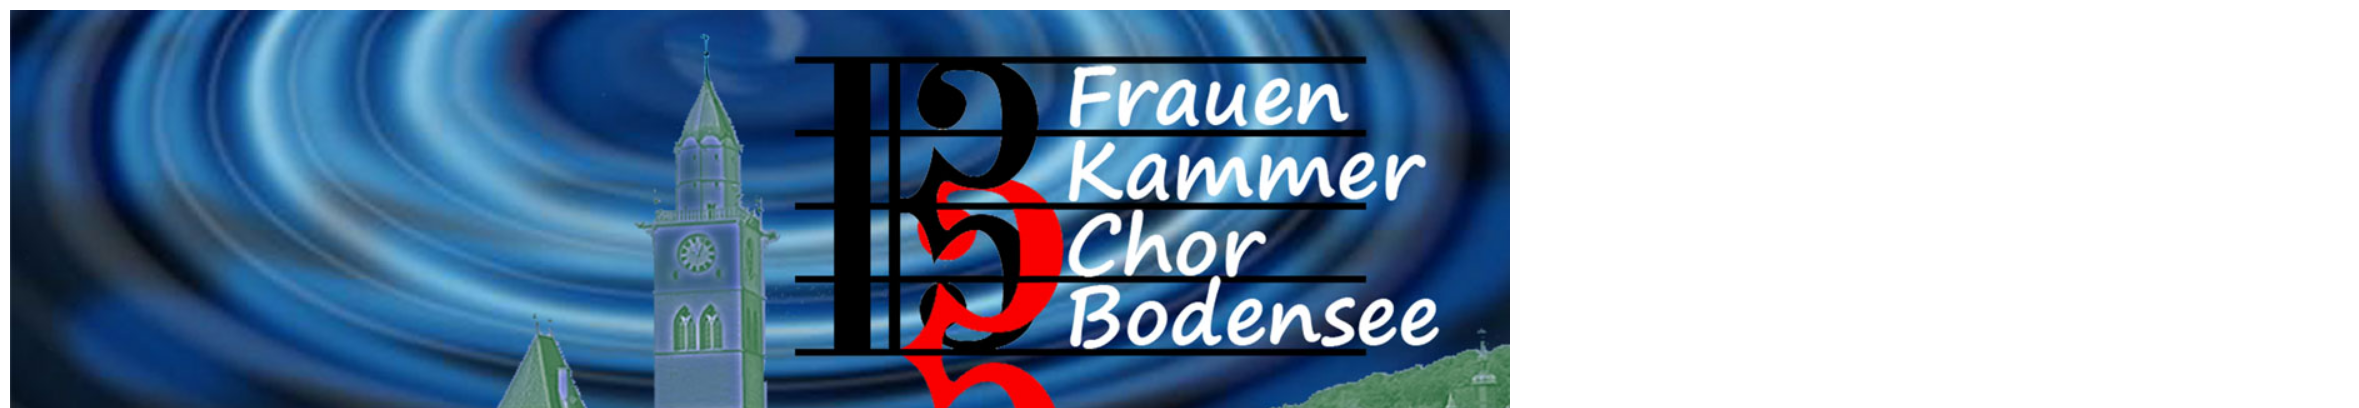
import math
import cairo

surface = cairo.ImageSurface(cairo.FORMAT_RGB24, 2359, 408)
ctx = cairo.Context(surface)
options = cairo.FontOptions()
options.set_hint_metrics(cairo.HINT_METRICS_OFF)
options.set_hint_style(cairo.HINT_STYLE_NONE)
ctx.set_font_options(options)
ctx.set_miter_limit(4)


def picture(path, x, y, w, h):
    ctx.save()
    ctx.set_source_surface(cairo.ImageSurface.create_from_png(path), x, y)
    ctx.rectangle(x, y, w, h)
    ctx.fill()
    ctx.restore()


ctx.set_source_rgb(1, 1, 1)
ctx.paint()
picture("img1.png", 10, 10, 1500, 398)
surface.write_to_png("page.png")
